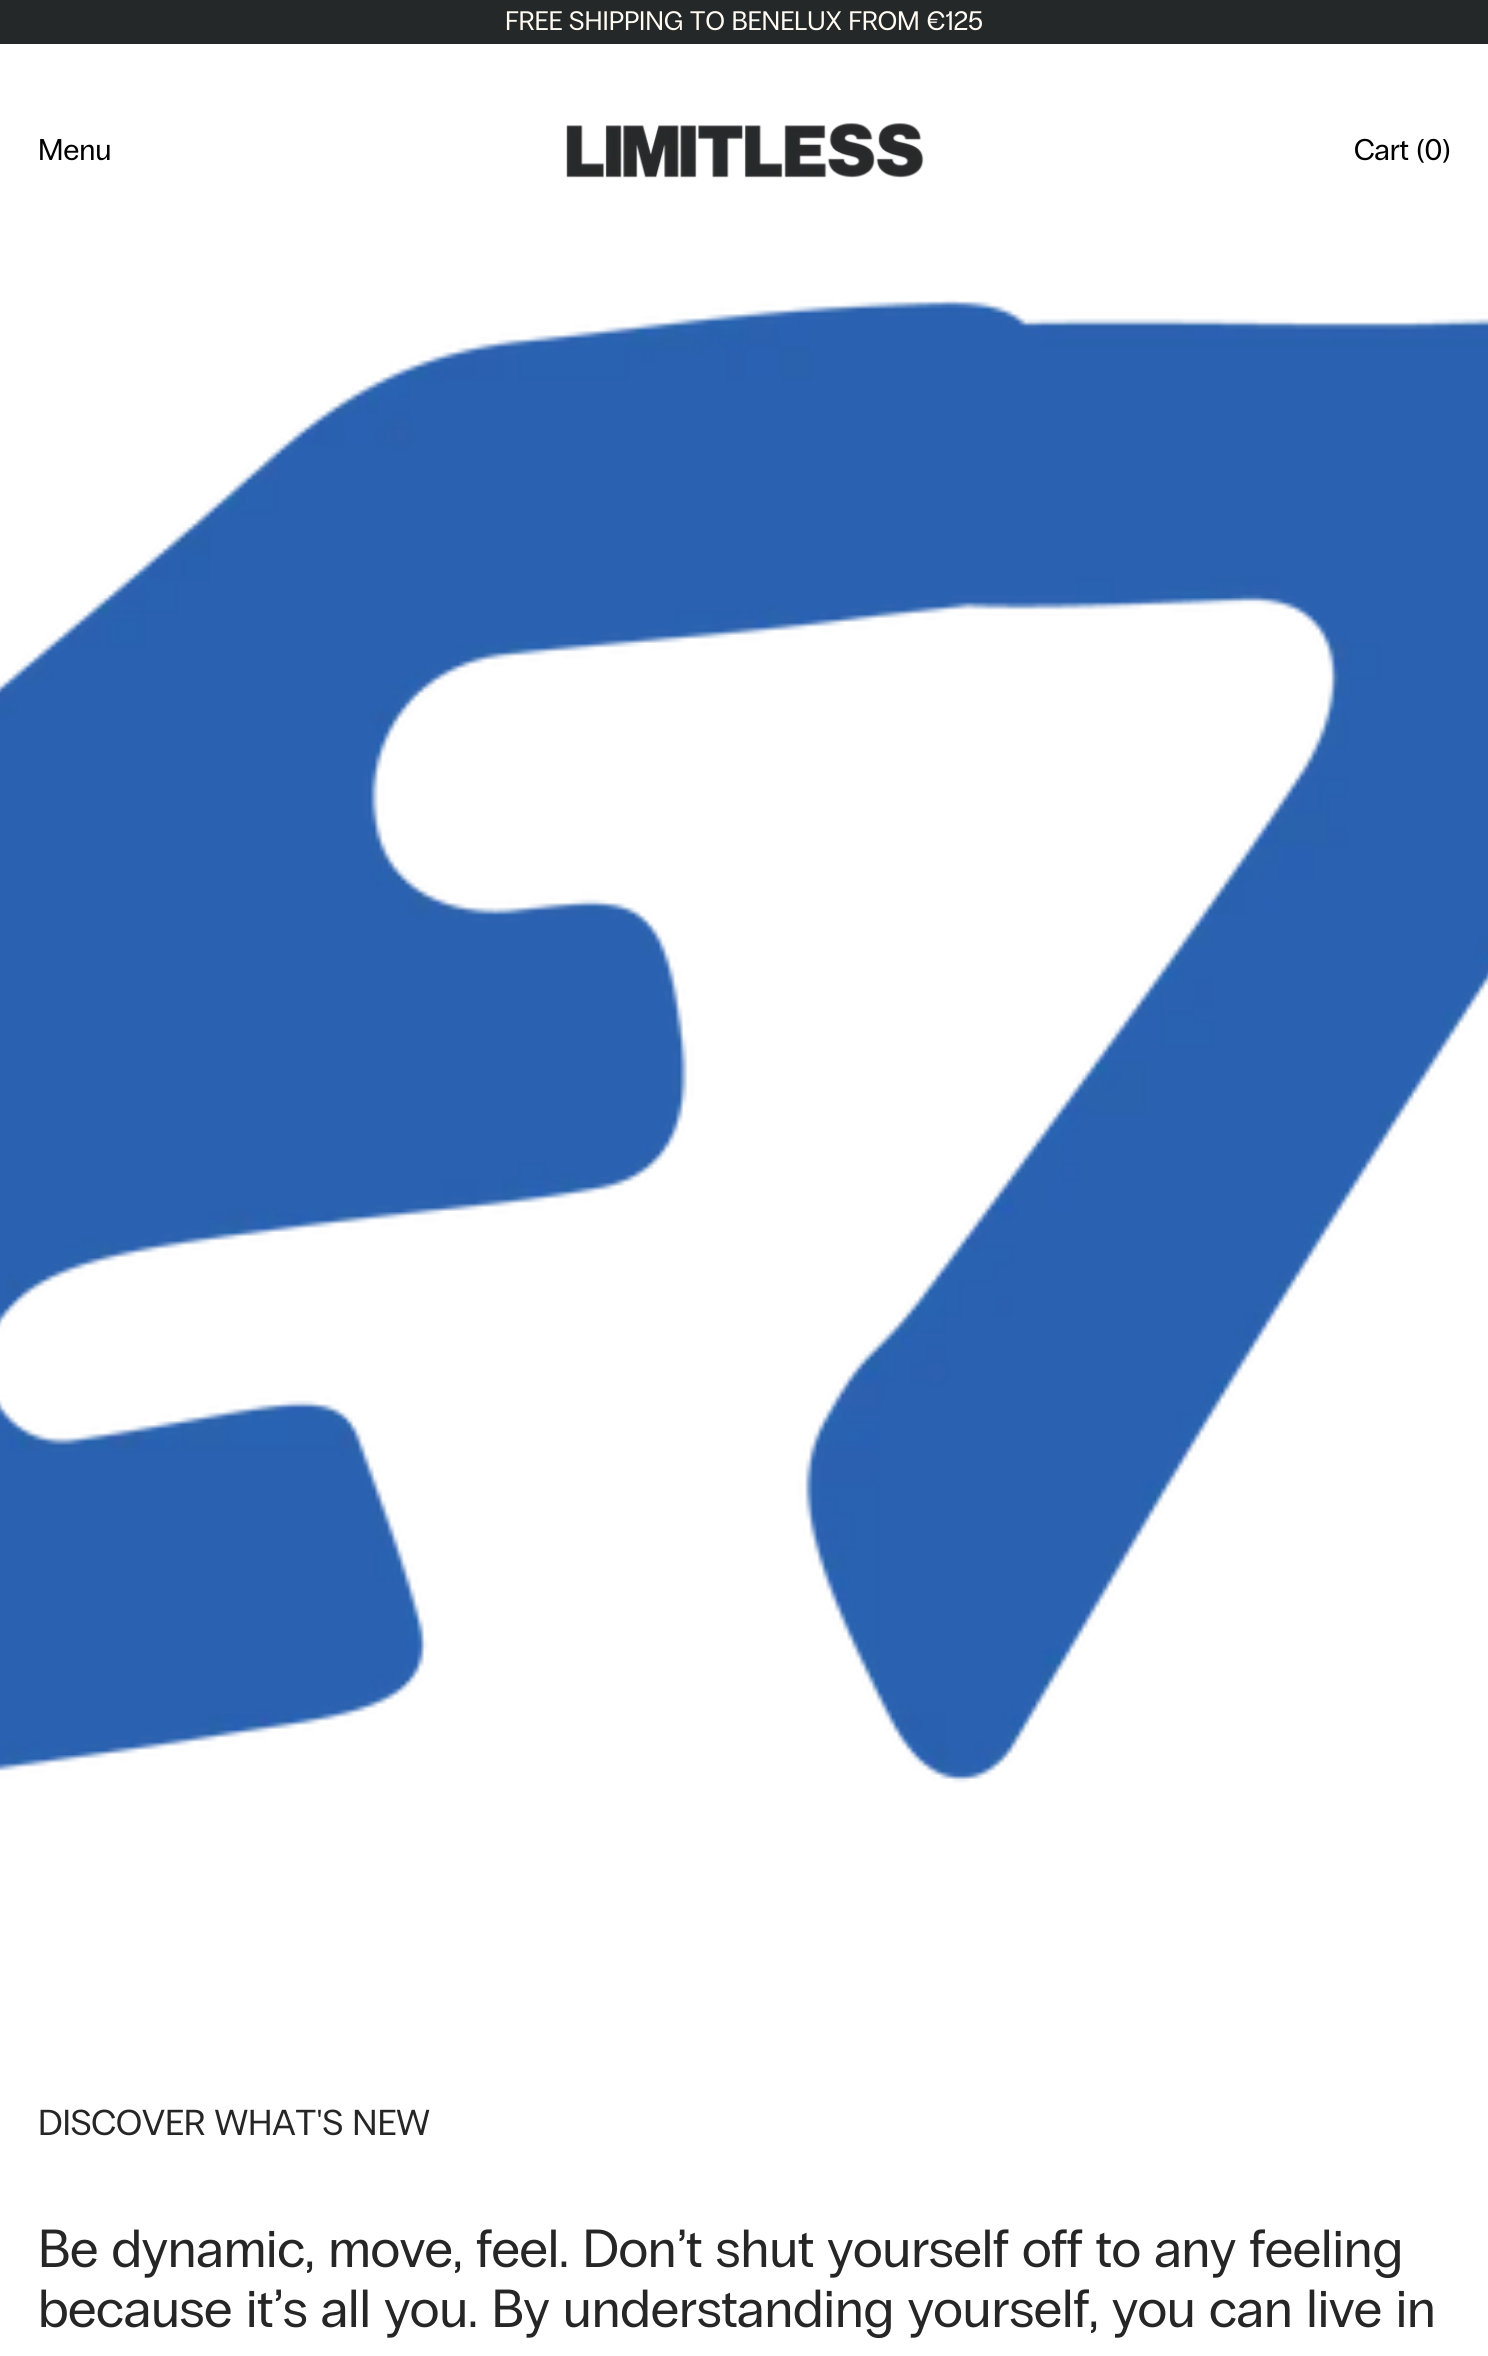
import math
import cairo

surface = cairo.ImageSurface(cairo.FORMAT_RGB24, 1488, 2356)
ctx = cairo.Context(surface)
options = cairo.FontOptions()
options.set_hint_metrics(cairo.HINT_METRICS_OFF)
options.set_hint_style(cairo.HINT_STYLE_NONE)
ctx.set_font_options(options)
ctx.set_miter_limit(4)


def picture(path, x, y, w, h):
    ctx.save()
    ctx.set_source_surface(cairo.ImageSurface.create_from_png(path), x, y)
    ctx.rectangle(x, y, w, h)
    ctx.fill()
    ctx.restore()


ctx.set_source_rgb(1, 1, 1)
ctx.paint()
ctx.set_source_rgb(0.141, 0.157, 0.157)
ctx.rectangle(0, 0, 1488, 44)
ctx.fill()
ctx.select_font_face("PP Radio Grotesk")
ctx.set_font_size(26.75)
ctx.set_source_rgb(1, 0.98, 0.949)
ctx.move_to(505, 30)
ctx.show_text("FREE SHIPPING TO BENELUX FROM €125")
ctx.set_font_size(30)
ctx.set_source_rgb(0, 0, 0)
ctx.move_to(38, 160)
ctx.show_text("Menu")
picture("img1.png", 566, 123, 358, 55)
ctx.move_to(1354, 160)
ctx.show_text("Cart (0)")
picture("img2.png", 0, 299, 1488, 1484)
ctx.set_font_size(36)
ctx.set_source_rgb(0.149, 0.149, 0.149)
ctx.move_to(38, 2135)
ctx.show_text("DISCOVER WHAT'S NEW")
ctx.set_font_size(53.45)
ctx.move_to(38, 2267)
ctx.show_text("Be dynamic, move, feel. Don’t shut yourself off to any feeling")
ctx.move_to(38, 2327)
ctx.show_text("because it’s all you. By understanding yourself, you can live in")
surface.write_to_png("page.png")
